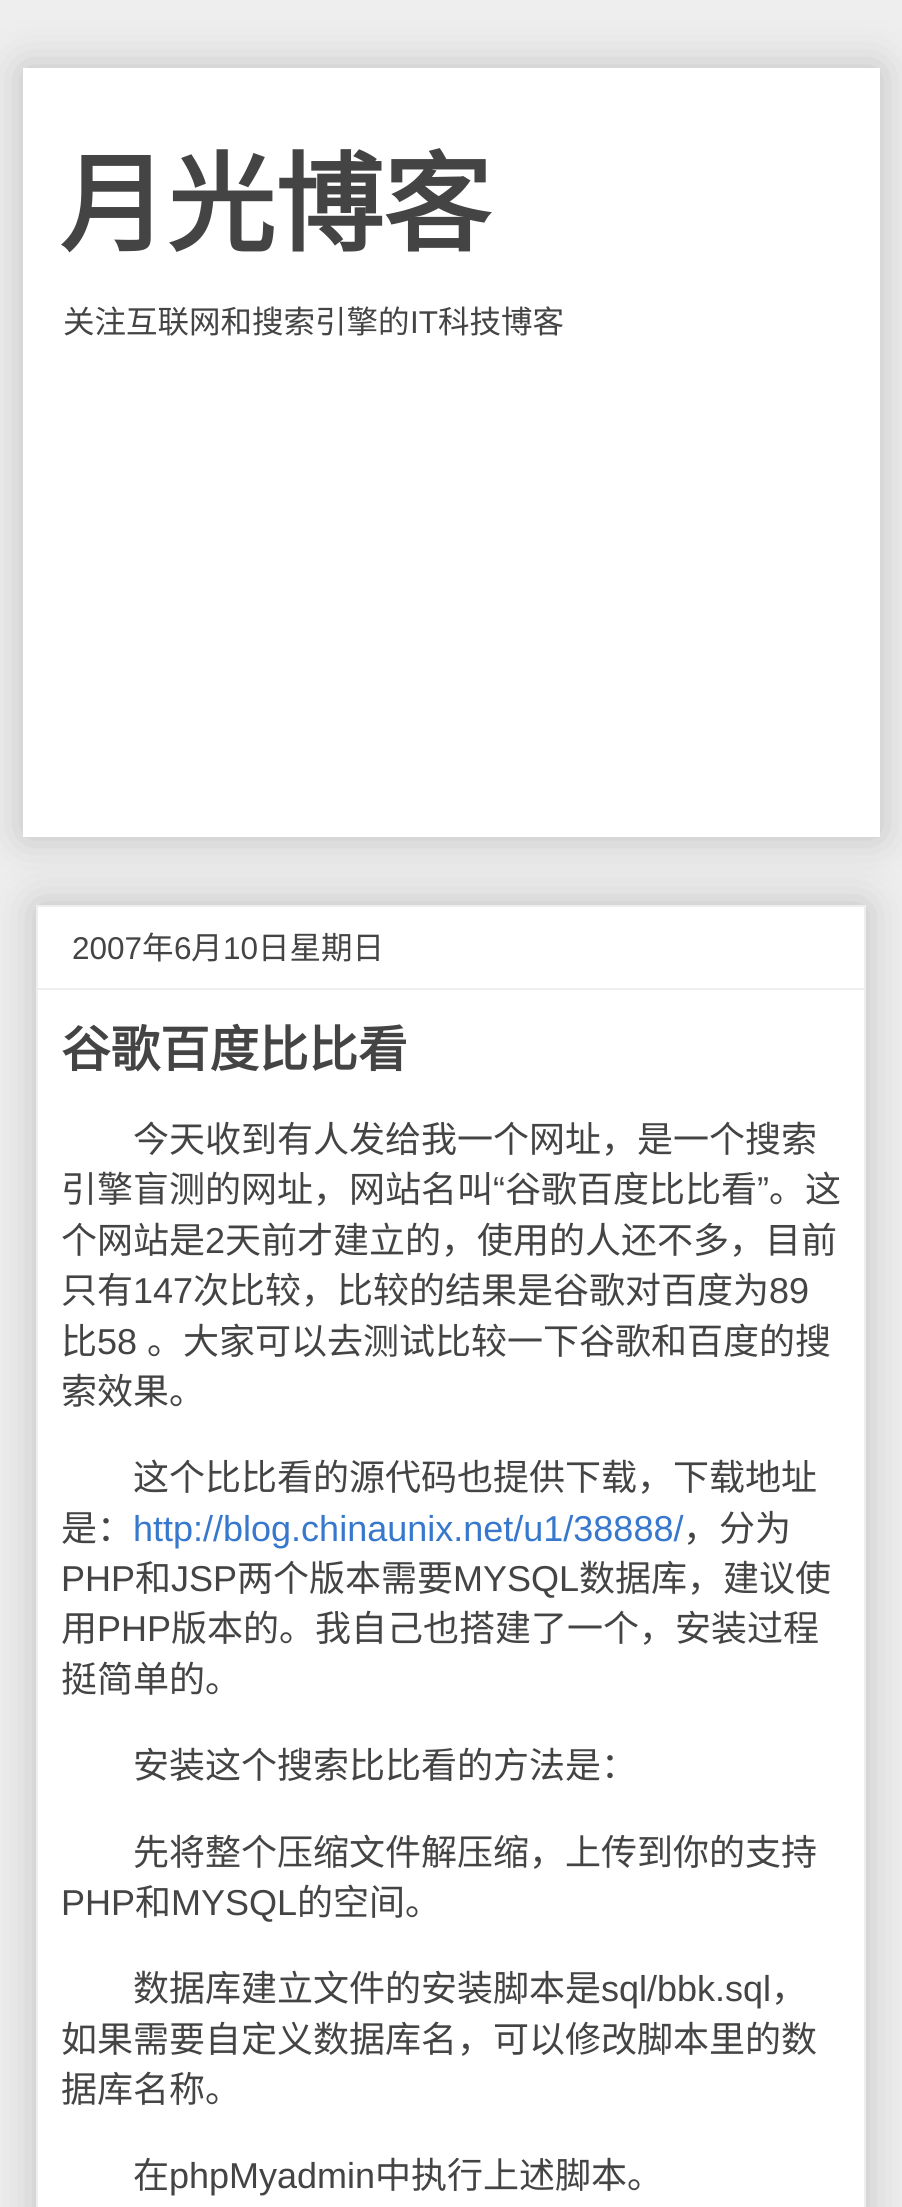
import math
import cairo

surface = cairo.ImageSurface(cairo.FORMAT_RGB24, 902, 2207)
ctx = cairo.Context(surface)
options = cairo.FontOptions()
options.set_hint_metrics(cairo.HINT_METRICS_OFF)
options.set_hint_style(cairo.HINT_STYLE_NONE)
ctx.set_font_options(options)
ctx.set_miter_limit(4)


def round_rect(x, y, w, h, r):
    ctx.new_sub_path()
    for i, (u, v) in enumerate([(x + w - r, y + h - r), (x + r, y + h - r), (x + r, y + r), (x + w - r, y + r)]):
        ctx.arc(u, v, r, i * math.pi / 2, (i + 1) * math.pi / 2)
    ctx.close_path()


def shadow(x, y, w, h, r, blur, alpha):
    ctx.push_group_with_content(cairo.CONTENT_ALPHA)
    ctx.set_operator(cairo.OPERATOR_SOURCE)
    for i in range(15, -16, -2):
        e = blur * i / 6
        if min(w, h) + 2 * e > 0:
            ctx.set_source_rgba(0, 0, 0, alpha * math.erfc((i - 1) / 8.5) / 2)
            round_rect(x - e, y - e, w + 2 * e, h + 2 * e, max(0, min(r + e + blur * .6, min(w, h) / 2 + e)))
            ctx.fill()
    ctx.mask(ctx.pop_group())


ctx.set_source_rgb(0.933, 0.933, 0.933)
ctx.paint()
ctx.set_source_rgb(0, 0, 0)
shadow(23, 68, 857, 769, 0, 22.5, 0.2)
ctx.set_source_rgb(1, 1, 1)
ctx.rectangle(23, 68, 857, 769)
ctx.fill()
ctx.select_font_face("Noto Sans CJK SC", cairo.FONT_SLANT_NORMAL, cairo.FONT_WEIGHT_BOLD)
ctx.set_font_size(108)
ctx.set_source_rgb(0.267, 0.267, 0.267)
ctx.move_to(59, 243)
ctx.show_text("月光博客")
ctx.select_font_face("Noto Sans CJK SC")
ctx.set_font_size(31.5)
ctx.move_to(63, 333)
ctx.show_text("关注互联网和搜索引擎的")
ctx.select_font_face("Liberation Sans")
ctx.move_to(410, 333)
ctx.show_text("IT")
ctx.select_font_face("Noto Sans CJK SC")
ctx.move_to(438, 333)
ctx.show_text("科技博客")
ctx.set_source_rgb(0, 0, 0)
shadow(36, 905, 830, 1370, 0, 22.5, 0.2)
ctx.set_source_rgb(1, 1, 1)
ctx.rectangle(37, 906, 828, 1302)
ctx.fill_preserve()
ctx.set_source_rgb(0.933, 0.933, 0.933)
ctx.stroke()
ctx.select_font_face("Liberation Sans")
ctx.set_source_rgb(0.267, 0.267, 0.267)
ctx.move_to(72, 959)
ctx.show_text("2007")
ctx.select_font_face("Noto Sans CJK SC")
ctx.move_to(142, 959)
ctx.show_text("年")
ctx.select_font_face("Liberation Sans")
ctx.move_to(174, 959)
ctx.show_text("6")
ctx.select_font_face("Noto Sans CJK SC")
ctx.move_to(191, 959)
ctx.show_text("月")
ctx.select_font_face("Liberation Sans")
ctx.move_to(223, 959)
ctx.show_text("10")
ctx.select_font_face("Noto Sans CJK SC")
ctx.move_to(258, 959)
ctx.show_text("日星期日")
ctx.set_source_rgb(0.933, 0.933, 0.933)
ctx.rectangle(38, 988, 826, 2)
ctx.fill()
ctx.select_font_face("Noto Sans CJK SC", cairo.FONT_SLANT_NORMAL, cairo.FONT_WEIGHT_BOLD)
ctx.set_font_size(49.5)
ctx.set_source_rgb(0.267, 0.267, 0.267)
ctx.move_to(61, 1067)
ctx.show_text("谷歌百度比比看")
ctx.select_font_face("Noto Sans CJK SC")
ctx.set_font_size(36)
ctx.move_to(133, 1152)
ctx.show_text("今天收到有人发给我一个网址，是一个搜索")
ctx.move_to(61, 1202)
ctx.show_text("引擎盲测的网址，网站名叫")
ctx.select_font_face("Liberation Sans")
ctx.move_to(493, 1202)
ctx.show_text("“")
ctx.select_font_face("Noto Sans CJK SC")
ctx.move_to(505, 1202)
ctx.show_text("谷歌百度比比看")
ctx.select_font_face("Liberation Sans")
ctx.move_to(757, 1202)
ctx.show_text("”")
ctx.select_font_face("Noto Sans CJK SC")
ctx.move_to(769, 1202)
ctx.show_text("。这")
ctx.move_to(61, 1253)
ctx.show_text("个网站是")
ctx.select_font_face("Liberation Sans")
ctx.move_to(205, 1253)
ctx.show_text("2")
ctx.select_font_face("Noto Sans CJK SC")
ctx.move_to(225, 1253)
ctx.show_text("天前才建立的，使用的人还不多，目前")
ctx.move_to(61, 1303)
ctx.show_text("只有")
ctx.select_font_face("Liberation Sans")
ctx.move_to(133, 1303)
ctx.show_text("147")
ctx.select_font_face("Noto Sans CJK SC")
ctx.move_to(193, 1303)
ctx.show_text("次比较，比较的结果是谷歌对百度为")
ctx.select_font_face("Liberation Sans")
ctx.move_to(769, 1303)
ctx.show_text("89")
ctx.select_font_face("Noto Sans CJK SC")
ctx.move_to(61, 1354)
ctx.show_text("比")
ctx.select_font_face("Liberation Sans")
ctx.move_to(97, 1354)
ctx.show_text("58")
ctx.select_font_face("Noto Sans CJK SC")
ctx.move_to(147, 1354)
ctx.show_text("。大家可以去测试比较一下谷歌和百度的搜")
ctx.move_to(61, 1404)
ctx.show_text("索效果。")
ctx.move_to(133, 1490)
ctx.show_text("这个比比看的源代码也提供下载，下载地址")
ctx.move_to(61, 1541)
ctx.show_text("是：")
ctx.select_font_face("Liberation Sans")
ctx.set_source_rgb(0.216, 0.471, 0.804)
ctx.move_to(133, 1541)
ctx.show_text("http://blog.chinaunix.net/u1/38888/")
ctx.select_font_face("Noto Sans CJK SC")
ctx.set_source_rgb(0.267, 0.267, 0.267)
ctx.move_to(683, 1541)
ctx.show_text("，分为")
ctx.select_font_face("Liberation Sans")
ctx.move_to(61, 1591)
ctx.show_text("PHP")
ctx.select_font_face("Noto Sans CJK SC")
ctx.move_to(135, 1591)
ctx.show_text("和")
ctx.select_font_face("Liberation Sans")
ctx.move_to(171, 1591)
ctx.show_text("JSP")
ctx.select_font_face("Noto Sans CJK SC")
ctx.move_to(237, 1591)
ctx.show_text("两个版本需要")
ctx.select_font_face("Liberation Sans")
ctx.move_to(453, 1591)
ctx.show_text("MYSQL")
ctx.select_font_face("Noto Sans CJK SC")
ctx.move_to(579, 1591)
ctx.show_text("数据库，建议使")
ctx.move_to(61, 1641)
ctx.show_text("用")
ctx.select_font_face("Liberation Sans")
ctx.move_to(97, 1641)
ctx.show_text("PHP")
ctx.select_font_face("Noto Sans CJK SC")
ctx.move_to(171, 1641)
ctx.show_text("版本的。我自己也搭建了一个，安装过程")
ctx.move_to(61, 1692)
ctx.show_text("挺简单的。")
ctx.move_to(133, 1778)
ctx.show_text("安装这个搜索比比看的方法是：")
ctx.move_to(133, 1865)
ctx.show_text("先将整个压缩文件解压缩，上传到你的支持")
ctx.select_font_face("Liberation Sans")
ctx.move_to(61, 1915)
ctx.show_text("PHP")
ctx.select_font_face("Noto Sans CJK SC")
ctx.move_to(135, 1915)
ctx.show_text("和")
ctx.select_font_face("Liberation Sans")
ctx.move_to(171, 1915)
ctx.show_text("MYSQL")
ctx.select_font_face("Noto Sans CJK SC")
ctx.move_to(297, 1915)
ctx.show_text("的空间。")
ctx.move_to(133, 2001)
ctx.show_text("数据库建立文件的安装脚本是")
ctx.select_font_face("Liberation Sans")
ctx.move_to(601, 2001)
ctx.show_text("sql/bbk.sql")
ctx.select_font_face("Noto Sans CJK SC")
ctx.move_to(771, 2001)
ctx.show_text("，")
ctx.move_to(61, 2052)
ctx.show_text("如果需要自定义数据库名，可以修改脚本里的数")
ctx.move_to(61, 2102)
ctx.show_text("据库名称。")
ctx.move_to(133, 2188)
ctx.show_text("在")
ctx.select_font_face("Liberation Sans")
ctx.move_to(169, 2188)
ctx.show_text("phpMyadmin")
ctx.select_font_face("Noto Sans CJK SC")
ctx.move_to(375, 2188)
ctx.show_text("中执行上述脚本。")
surface.write_to_png("page.png")
